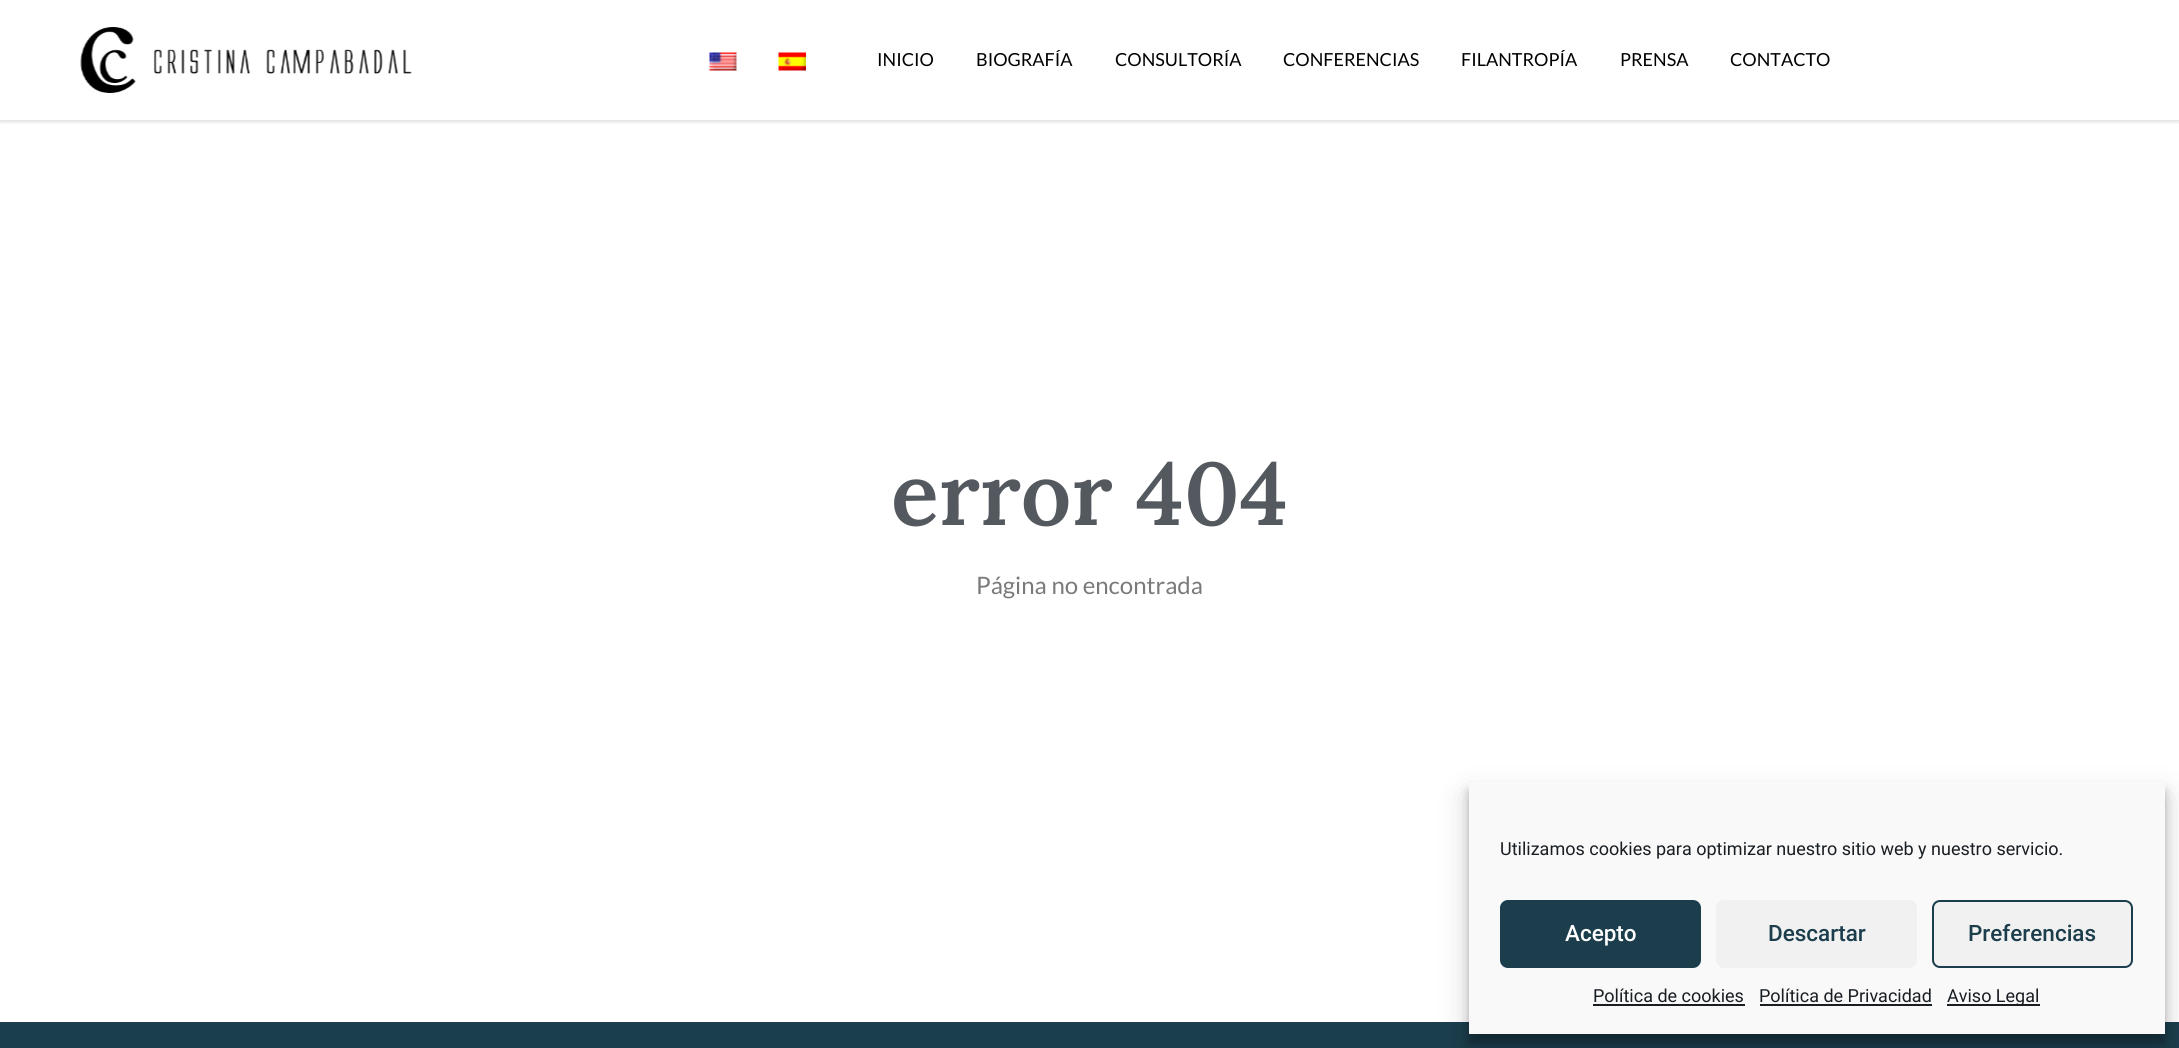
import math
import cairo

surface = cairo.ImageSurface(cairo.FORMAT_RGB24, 2179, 1048)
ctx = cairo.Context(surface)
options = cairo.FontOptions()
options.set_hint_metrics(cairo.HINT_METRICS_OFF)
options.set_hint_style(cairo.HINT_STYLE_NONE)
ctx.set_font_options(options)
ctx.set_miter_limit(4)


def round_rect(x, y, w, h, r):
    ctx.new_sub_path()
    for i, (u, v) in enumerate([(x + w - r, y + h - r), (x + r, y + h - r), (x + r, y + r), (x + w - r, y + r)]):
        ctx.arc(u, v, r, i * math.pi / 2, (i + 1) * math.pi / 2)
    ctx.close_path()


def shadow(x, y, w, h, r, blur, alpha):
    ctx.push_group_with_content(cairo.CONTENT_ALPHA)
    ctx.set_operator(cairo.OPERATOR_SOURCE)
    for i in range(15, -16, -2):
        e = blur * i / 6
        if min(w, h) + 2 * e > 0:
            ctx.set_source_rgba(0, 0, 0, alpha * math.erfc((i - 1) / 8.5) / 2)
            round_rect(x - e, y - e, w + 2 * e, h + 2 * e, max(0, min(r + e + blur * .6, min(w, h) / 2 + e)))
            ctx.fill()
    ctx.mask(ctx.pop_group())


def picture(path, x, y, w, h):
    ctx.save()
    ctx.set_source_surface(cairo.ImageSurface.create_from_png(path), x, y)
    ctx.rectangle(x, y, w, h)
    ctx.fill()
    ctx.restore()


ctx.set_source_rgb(1, 1, 1)
ctx.paint()
ctx.save()
ctx.rectangle(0, 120, 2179, 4)
ctx.clip()
ctx.set_source_rgb(0, 0, 0)
shadow(0, 0, 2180, 120, 0, 3, 0.24)
ctx.restore()
picture("img1.png", 80, 27, 332, 66)
picture("img2.png", 709, 52, 28, 19)
picture("img3.png", 778, 52, 28, 19)
ctx.select_font_face("Lato")
ctx.set_font_size(18)
ctx.set_source_rgb(0, 0, 0)
ctx.move_to(877, 66)
ctx.show_text("INICIO")
ctx.move_to(976, 66)
ctx.show_text("BIOGRAFÍA")
ctx.move_to(1115, 66)
ctx.show_text("CONSULTORÍA")
ctx.move_to(1283, 66)
ctx.show_text("CONFERENCIAS")
ctx.move_to(1461, 66)
ctx.show_text("FILANTROPÍA")
ctx.move_to(1620, 66)
ctx.show_text("PRENSA")
ctx.move_to(1730, 66)
ctx.show_text("CONTACTO")
ctx.select_font_face("Lora SemiBold")
ctx.set_font_size(88.5)
ctx.set_source_rgb(0.329, 0.349, 0.373)
ctx.move_to(891, 525)
ctx.show_text("error 404")
ctx.select_font_face("Lato")
ctx.set_font_size(24)
ctx.set_source_rgb(0.478, 0.478, 0.478)
ctx.move_to(976, 594)
ctx.show_text("Página no encontrada")
ctx.set_source_rgb(0.106, 0.243, 0.302)
ctx.rectangle(0, 1022, 2179, 26)
ctx.fill()
ctx.set_source_rgb(0, 0, 0)
shadow(1469, 791, 696, 252, 0, 4.5, 0.23)
shadow(1469, 797, 696, 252, 0, 15, 0.19)
ctx.set_source_rgb(0.976, 0.976, 0.976)
ctx.rectangle(1469, 782, 696, 252)
ctx.fill()
ctx.select_font_face("Roboto")
ctx.set_font_size(18)
ctx.set_source_rgb(0.098, 0.118, 0.137)
ctx.move_to(1500, 855)
ctx.show_text("Utilizamos cookies para optimizar nuestro sitio web y nuestro servicio.")
ctx.set_source_rgb(0.106, 0.239, 0.298)
round_rect(1501, 901, 199, 66, 7)
ctx.fill_preserve()
ctx.stroke()
ctx.select_font_face("Roboto Medium")
ctx.set_font_size(22.5)
ctx.set_source_rgb(1, 1, 1)
ctx.move_to(1565, 941)
ctx.show_text("Acepto")
ctx.set_source_rgb(0.945, 0.945, 0.945)
round_rect(1716, 900, 201, 68, 8)
ctx.fill()
ctx.set_source_rgb(0.106, 0.239, 0.298)
ctx.move_to(1768, 941)
ctx.show_text("Descartar")
ctx.set_source_rgb(0.945, 0.945, 0.945)
round_rect(1933, 901, 199, 66, 7)
ctx.fill_preserve()
ctx.set_source_rgb(0.106, 0.239, 0.298)
ctx.stroke()
ctx.move_to(1968, 941)
ctx.show_text("Preferencias")
ctx.select_font_face("Roboto")
ctx.set_font_size(18)
ctx.set_source_rgb(0.098, 0.118, 0.137)
ctx.move_to(1593, 1002)
ctx.show_text("Política de cookies")
ctx.rectangle(1593, 1004, 152, 2)
ctx.fill()
ctx.move_to(1759, 1002)
ctx.show_text("Política de Privacidad")
ctx.rectangle(1760, 1004, 172, 2)
ctx.fill()
ctx.rectangle(1947, 1004, 93, 2)
ctx.fill()
ctx.move_to(1947, 1002)
ctx.show_text("Aviso Legal")
surface.write_to_png("page.png")
